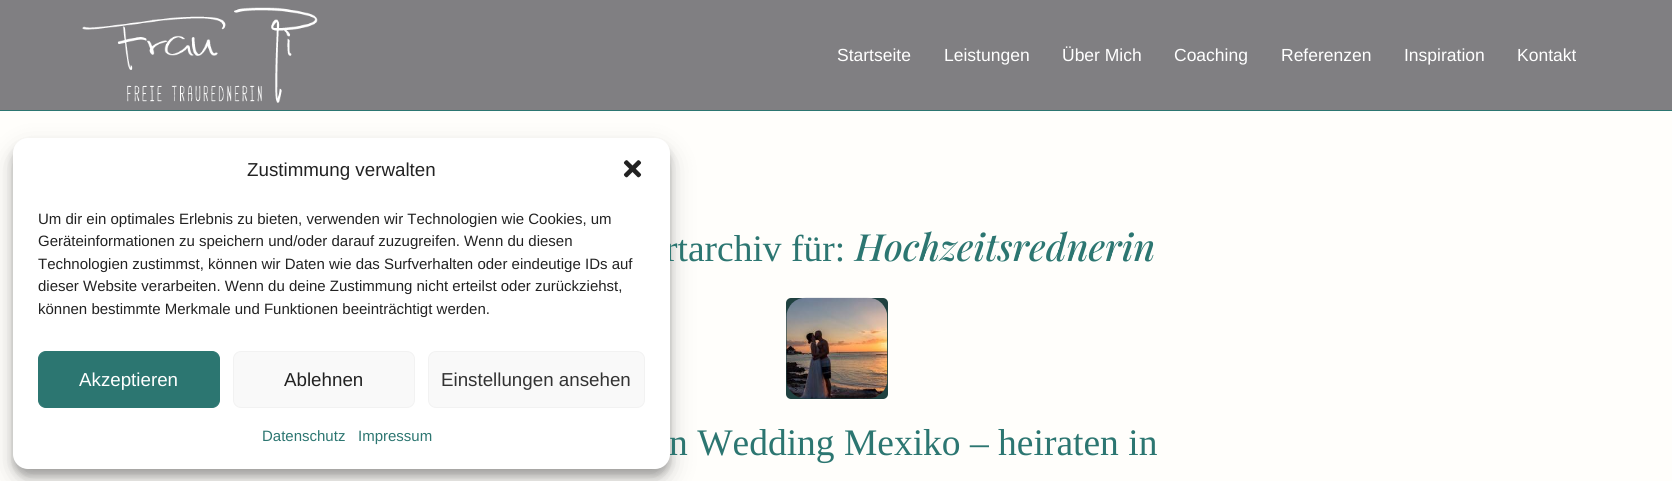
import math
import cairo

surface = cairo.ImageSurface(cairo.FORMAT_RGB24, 1672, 481)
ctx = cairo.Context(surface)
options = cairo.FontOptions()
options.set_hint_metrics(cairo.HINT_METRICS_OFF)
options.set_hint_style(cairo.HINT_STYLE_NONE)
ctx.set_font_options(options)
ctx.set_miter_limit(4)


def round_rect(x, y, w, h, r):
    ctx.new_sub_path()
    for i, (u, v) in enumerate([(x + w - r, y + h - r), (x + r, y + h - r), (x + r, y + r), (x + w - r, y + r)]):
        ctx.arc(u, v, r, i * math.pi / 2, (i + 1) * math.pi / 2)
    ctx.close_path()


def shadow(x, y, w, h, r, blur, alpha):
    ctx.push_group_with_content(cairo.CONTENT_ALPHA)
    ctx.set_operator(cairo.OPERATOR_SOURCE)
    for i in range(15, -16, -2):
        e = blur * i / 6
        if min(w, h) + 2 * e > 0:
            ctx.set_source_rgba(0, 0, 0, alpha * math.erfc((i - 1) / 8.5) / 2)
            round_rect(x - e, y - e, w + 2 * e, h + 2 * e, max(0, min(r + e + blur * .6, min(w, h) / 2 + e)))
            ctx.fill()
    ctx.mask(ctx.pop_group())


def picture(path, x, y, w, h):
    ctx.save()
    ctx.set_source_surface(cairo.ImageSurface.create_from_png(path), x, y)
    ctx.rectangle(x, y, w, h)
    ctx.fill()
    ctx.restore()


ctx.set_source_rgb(1, 0.996, 0.984)
ctx.paint()
ctx.set_source_rgb(0, 0, 0)
shadow(13, 145, 657, 331, 15, 4, 0.23)
shadow(13, 150, 657, 331, 15, 12.5, 0.19)
ctx.select_font_face("Liberation Serif")
ctx.set_font_size(37.5)
ctx.set_source_rgb(0.173, 0.463, 0.443)
ctx.move_to(665, 261)
ctx.show_text("rtarchiv für:")
ctx.move_to(669, 455)
ctx.show_text("n Wedding Mexiko – heiraten in")
ctx.set_source_rgb(1, 1, 1)
round_rect(13, 138, 657, 331, 15)
ctx.fill()
ctx.select_font_face("Liberation Sans")
ctx.set_font_size(18.75)
ctx.set_source_rgb(0.133, 0.133, 0.133)
ctx.move_to(247, 176)
ctx.show_text("Zustimmung verwalten")
picture("img1.png", 623, 160, 19, 18)
ctx.set_font_size(15)
ctx.move_to(38, 224)
ctx.show_text("Um dir ein optimales Erlebnis zu bieten, verwenden wir Technologien wie Cookies, um")
ctx.move_to(38, 246)
ctx.show_text("Geräteinformationen zu speichern und/oder darauf zuzugreifen. Wenn du diesen")
ctx.move_to(38, 269)
ctx.show_text("Technologien zustimmst, können wir Daten wie das Surfverhalten oder eindeutige IDs auf")
ctx.move_to(38, 291)
ctx.show_text("dieser Website verarbeiten. Wenn du deine Zustimmung nicht erteilst oder zurückziehst,")
ctx.move_to(38, 314)
ctx.show_text("können bestimmte Merkmale und Funktionen beeinträchtigt werden.")
ctx.set_source_rgb(0.173, 0.463, 0.443)
round_rect(38.5, 351.5, 181, 56, 7.5)
ctx.fill_preserve()
ctx.set_line_width(1)
ctx.stroke()
ctx.set_font_size(18.75)
ctx.set_source_rgb(1, 1, 1)
ctx.move_to(79, 386)
ctx.show_text("Akzeptieren")
ctx.set_source_rgb(0.976, 0.976, 0.976)
round_rect(233.5, 351.5, 181, 56, 7.5)
ctx.fill_preserve()
ctx.set_source_rgb(0.949, 0.949, 0.949)
ctx.stroke()
ctx.set_source_rgb(0.133, 0.133, 0.133)
ctx.move_to(284, 386)
ctx.show_text("Ablehnen")
ctx.set_source_rgb(0.976, 0.976, 0.976)
round_rect(428.5, 351.5, 216, 56, 7.5)
ctx.fill_preserve()
ctx.set_source_rgb(0.949, 0.949, 0.949)
ctx.stroke()
ctx.set_source_rgb(0.2, 0.2, 0.2)
ctx.move_to(441, 386)
ctx.show_text("Einstellungen ansehen")
ctx.set_font_size(15)
ctx.set_source_rgb(0.173, 0.463, 0.443)
ctx.move_to(262, 441)
ctx.show_text("Datenschutz")
ctx.move_to(358, 441)
ctx.show_text("Impressum")
ctx.set_source_rgb(0.502, 0.498, 0.51)
ctx.rectangle(0, 0, 1672, 110)
ctx.fill()
picture("img2.png", 82, 7, 236, 96)
ctx.set_font_size(17.5)
ctx.set_source_rgb(1, 1, 1)
ctx.move_to(837, 61)
ctx.show_text("Startseite")
ctx.move_to(944, 61)
ctx.show_text("Leistungen")
ctx.move_to(1062, 61)
ctx.show_text("Über Mich")
ctx.move_to(1174, 61)
ctx.show_text("Coaching")
ctx.move_to(1281, 61)
ctx.show_text("Referenzen")
ctx.move_to(1404, 61)
ctx.show_text("Inspiration")
ctx.move_to(1517, 61)
ctx.show_text("Kontakt")
ctx.set_source_rgb(0.173, 0.463, 0.443)
ctx.rectangle(0, 110, 1672, 1)
ctx.fill()
ctx.select_font_face("Playfair Display Medium", cairo.FONT_SLANT_ITALIC)
ctx.set_font_size(37.5)
ctx.move_to(855, 261)
ctx.show_text("Hochzeitsrednerin")
ctx.set_source_rgb(0.125, 0.255, 0.251)
round_rect(786, 298, 102, 101, 5)
ctx.fill()
picture("img3.png", 786, 297, 102, 102)
surface.write_to_png("page.png")
